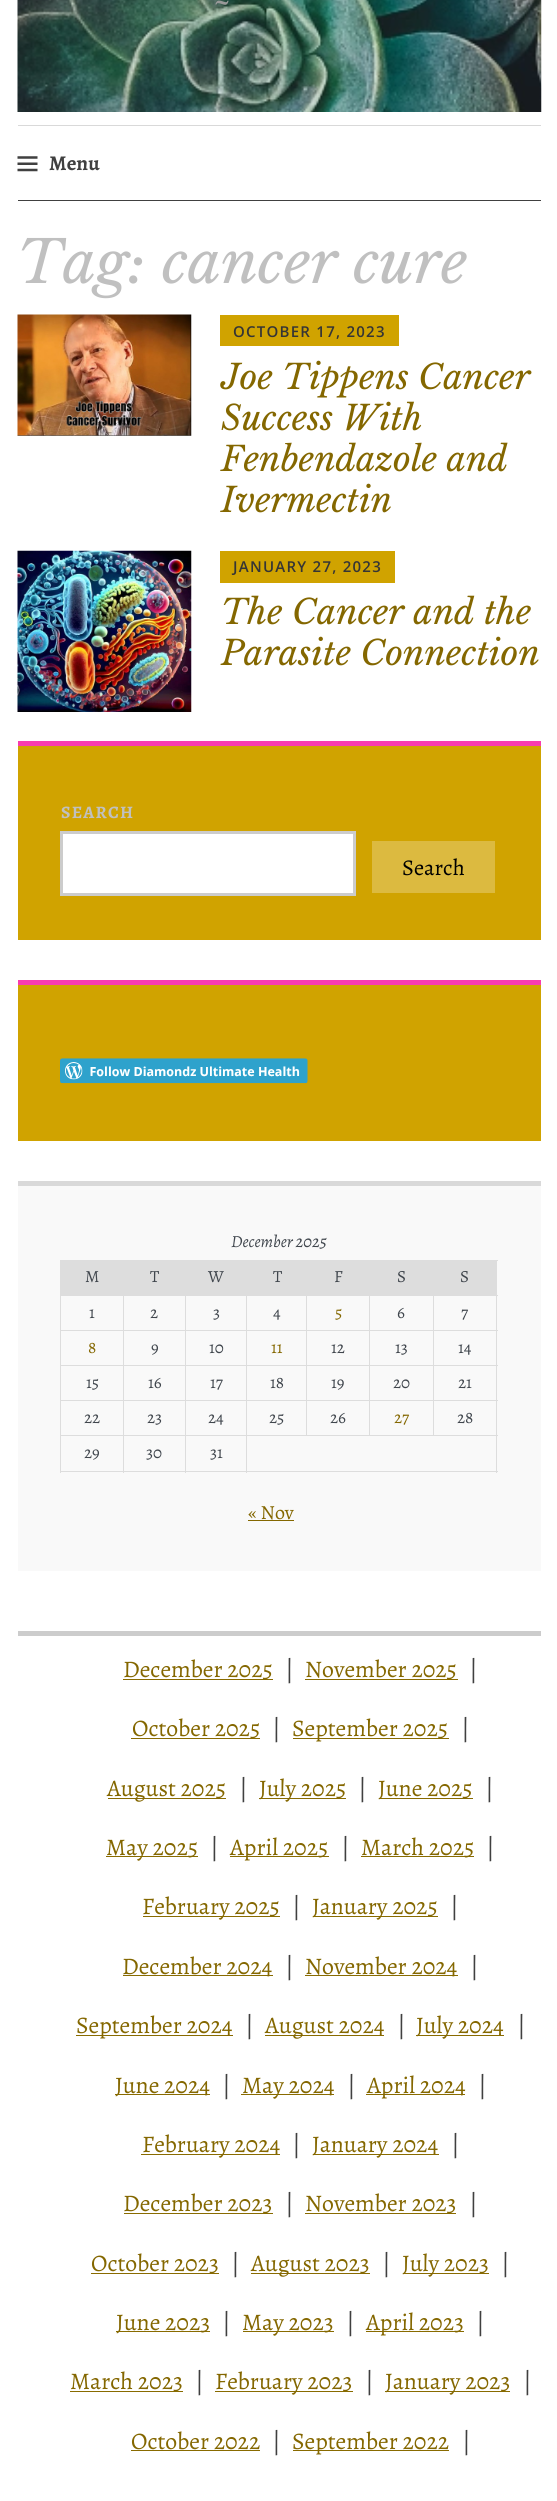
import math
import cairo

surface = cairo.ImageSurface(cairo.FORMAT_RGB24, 557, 2501)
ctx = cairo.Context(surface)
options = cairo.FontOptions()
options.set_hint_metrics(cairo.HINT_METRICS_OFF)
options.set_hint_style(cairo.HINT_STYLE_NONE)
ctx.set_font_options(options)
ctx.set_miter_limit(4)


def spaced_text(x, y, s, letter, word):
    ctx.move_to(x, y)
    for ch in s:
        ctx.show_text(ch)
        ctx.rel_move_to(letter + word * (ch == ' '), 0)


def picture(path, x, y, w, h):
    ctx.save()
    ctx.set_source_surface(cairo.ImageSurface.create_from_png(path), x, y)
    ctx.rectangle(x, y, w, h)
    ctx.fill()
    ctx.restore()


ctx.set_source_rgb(1, 1, 1)
ctx.paint()
picture("img1.png", 17, 0, 525, 112)
ctx.select_font_face("Libre Baskerville", cairo.FONT_SLANT_ITALIC)
ctx.set_font_size(34.1)
ctx.set_source_rgb(0.6, 0.6, 0.6)
ctx.move_to(213, 13)
ctx.show_text("~")
ctx.set_source_rgb(0.851, 0.851, 0.851)
ctx.rectangle(18, 125, 523, 1)
ctx.fill()
ctx.set_source_rgb(0.251, 0.251, 0.251)
ctx.rectangle(18, 200, 523, 1)
ctx.fill()
picture("img2.png", 17, 156, 21, 16)
ctx.select_font_face("Alegreya", cairo.FONT_SLANT_NORMAL, cairo.FONT_WEIGHT_BOLD)
ctx.set_font_size(21)
ctx.move_to(49, 170)
ctx.show_text("Menu")
ctx.select_font_face("Libre Baskerville", cairo.FONT_SLANT_ITALIC)
ctx.set_font_size(58.5)
ctx.set_source_rgb(0.753, 0.753, 0.753)
ctx.move_to(17, 283)
ctx.show_text("Tag: cancer cure")
picture("img3.png", 17, 314, 175, 122)
ctx.set_source_rgb(0.816, 0.639, 0)
ctx.rectangle(220, 315, 179, 31)
ctx.fill()
ctx.select_font_face("Open Sans SemiBold")
ctx.set_font_size(15)
ctx.set_source_rgb(0.208, 0.208, 0.208)
spaced_text(233, 337, "OCTOBER 17, 2023", 1.25, 0)
ctx.select_font_face("Libre Baskerville", cairo.FONT_SLANT_ITALIC)
ctx.set_font_size(34.1)
ctx.set_source_rgb(0.518, 0.404, 0)
ctx.move_to(221, 389)
ctx.show_text("Joe Tippens Cancer")
ctx.move_to(221, 430)
ctx.show_text("Success With")
ctx.move_to(221, 471)
ctx.show_text("Fenbendazole and")
ctx.move_to(221, 512)
ctx.show_text("Ivermectin")
picture("img4.png", 17, 550, 175, 162)
ctx.set_source_rgb(0.816, 0.639, 0)
ctx.rectangle(220, 551, 175, 32)
ctx.fill()
ctx.select_font_face("Open Sans SemiBold")
ctx.set_font_size(15)
ctx.set_source_rgb(0.208, 0.208, 0.208)
spaced_text(233, 572, "JANUARY 27, 2023", 1.25, 0)
ctx.select_font_face("Libre Baskerville", cairo.FONT_SLANT_ITALIC)
ctx.set_font_size(34.1)
ctx.set_source_rgb(0.518, 0.404, 0)
ctx.move_to(221, 624)
ctx.show_text("The Cancer and the")
ctx.move_to(221, 665)
ctx.show_text("Parasite Connection")
ctx.set_source_rgb(0.816, 0.639, 0)
ctx.rectangle(18, 746, 523, 194)
ctx.fill()
ctx.set_source_rgb(0.969, 0.235, 0.686)
ctx.rectangle(18, 741, 523, 5)
ctx.fill()
ctx.select_font_face("Alegreya", cairo.FONT_SLANT_NORMAL, cairo.FONT_WEIGHT_BOLD)
ctx.set_font_size(17.5)
ctx.set_source_rgb(0.753, 0.753, 0.753)
spaced_text(61, 818, "SEARCH", 1.25, 0)
ctx.set_source_rgb(1, 1, 1)
ctx.rectangle(61.5, 832.5, 293, 62)
ctx.fill_preserve()
ctx.set_source_rgb(0.8, 0.8, 0.8)
ctx.set_line_width(3)
ctx.stroke()
ctx.set_source_rgb(0.863, 0.729, 0.251)
ctx.rectangle(372, 841, 123, 52)
ctx.fill()
ctx.select_font_face("Alegreya")
ctx.set_font_size(22.5)
ctx.set_source_rgb(0, 0, 0)
ctx.move_to(402, 875)
ctx.show_text("Search")
ctx.set_source_rgb(0.816, 0.639, 0)
ctx.rectangle(18, 985, 523, 156)
ctx.fill()
ctx.set_source_rgb(0.969, 0.235, 0.686)
ctx.rectangle(18, 980, 523, 5)
ctx.fill()
picture("img5.png", 60, 1058, 248, 26)
ctx.set_source_rgb(0.973, 0.973, 0.973)
ctx.rectangle(18, 1186, 523, 385)
ctx.fill()
ctx.set_source_rgb(0.851, 0.851, 0.851)
ctx.rectangle(18, 1181, 523, 5)
ctx.fill()
ctx.select_font_face("Alegreya", cairo.FONT_SLANT_ITALIC)
ctx.set_font_size(17)
ctx.set_source_rgb(0.251, 0.275, 0.302)
ctx.move_to(231, 1247)
ctx.show_text("December 2025")
ctx.set_source_rgb(0.867, 0.867, 0.867)
ctx.rectangle(61, 1261, 63, 34)
ctx.fill()
ctx.rectangle(60, 1260, 64, 1)
ctx.fill()
ctx.rectangle(433, 1295, 65, 1)
ctx.fill()
ctx.rectangle(433, 1330, 65, 1)
ctx.fill()
ctx.rectangle(433, 1365, 65, 1)
ctx.fill()
ctx.rectangle(433, 1400, 65, 1)
ctx.fill()
ctx.rectangle(246, 1435, 252, 1)
ctx.fill()
ctx.rectangle(433, 1400, 1, 36)
ctx.fill()
ctx.rectangle(369, 1400, 65, 1)
ctx.fill()
ctx.rectangle(433, 1365, 1, 36)
ctx.fill()
ctx.rectangle(369, 1365, 65, 1)
ctx.fill()
ctx.rectangle(433, 1330, 1, 36)
ctx.fill()
ctx.rectangle(369, 1330, 65, 1)
ctx.fill()
ctx.rectangle(433, 1295, 1, 36)
ctx.fill()
ctx.rectangle(369, 1295, 65, 1)
ctx.fill()
ctx.rectangle(369, 1400, 1, 36)
ctx.fill()
ctx.rectangle(306, 1400, 64, 1)
ctx.fill()
ctx.rectangle(369, 1365, 1, 36)
ctx.fill()
ctx.rectangle(306, 1365, 64, 1)
ctx.fill()
ctx.rectangle(369, 1330, 1, 36)
ctx.fill()
ctx.rectangle(306, 1330, 64, 1)
ctx.fill()
ctx.rectangle(369, 1295, 1, 36)
ctx.fill()
ctx.rectangle(306, 1295, 64, 1)
ctx.fill()
ctx.rectangle(306, 1400, 1, 36)
ctx.fill()
ctx.rectangle(246, 1400, 62, 1)
ctx.fill()
ctx.rectangle(306, 1365, 1, 36)
ctx.fill()
ctx.rectangle(246, 1365, 62, 1)
ctx.fill()
ctx.rectangle(306, 1330, 1, 36)
ctx.fill()
ctx.rectangle(246, 1330, 62, 1)
ctx.fill()
ctx.rectangle(306, 1295, 1, 36)
ctx.fill()
ctx.rectangle(246, 1295, 62, 1)
ctx.fill()
ctx.rectangle(496, 1435, 1, 38)
ctx.fill()
ctx.rectangle(246, 1471, 252, 1)
ctx.fill()
ctx.rectangle(246, 1435, 1, 38)
ctx.fill()
ctx.rectangle(185, 1435, 63, 1)
ctx.fill()
ctx.rectangle(246, 1400, 1, 36)
ctx.fill()
ctx.rectangle(185, 1400, 63, 1)
ctx.fill()
ctx.rectangle(246, 1365, 1, 36)
ctx.fill()
ctx.rectangle(185, 1365, 63, 1)
ctx.fill()
ctx.rectangle(246, 1330, 1, 36)
ctx.fill()
ctx.rectangle(185, 1330, 63, 1)
ctx.fill()
ctx.rectangle(246, 1295, 1, 36)
ctx.fill()
ctx.rectangle(185, 1295, 63, 1)
ctx.fill()
ctx.rectangle(185, 1471, 63, 1)
ctx.fill()
ctx.rectangle(185, 1435, 1, 38)
ctx.fill()
ctx.rectangle(123, 1435, 63, 1)
ctx.fill()
ctx.rectangle(185, 1400, 1, 36)
ctx.fill()
ctx.rectangle(123, 1400, 63, 1)
ctx.fill()
ctx.rectangle(185, 1365, 1, 36)
ctx.fill()
ctx.rectangle(123, 1365, 63, 1)
ctx.fill()
ctx.rectangle(185, 1330, 1, 36)
ctx.fill()
ctx.rectangle(123, 1330, 63, 1)
ctx.fill()
ctx.rectangle(185, 1295, 1, 36)
ctx.fill()
ctx.rectangle(123, 1295, 63, 1)
ctx.fill()
ctx.rectangle(123, 1471, 63, 1)
ctx.fill()
ctx.rectangle(123, 1435, 1, 38)
ctx.fill()
ctx.rectangle(60, 1435, 64, 1)
ctx.fill()
ctx.rectangle(123, 1400, 1, 36)
ctx.fill()
ctx.rectangle(60, 1400, 64, 1)
ctx.fill()
ctx.rectangle(123, 1365, 1, 36)
ctx.fill()
ctx.rectangle(60, 1365, 64, 1)
ctx.fill()
ctx.rectangle(123, 1330, 1, 36)
ctx.fill()
ctx.rectangle(60, 1330, 64, 1)
ctx.fill()
ctx.rectangle(123, 1295, 1, 36)
ctx.fill()
ctx.rectangle(60, 1295, 64, 1)
ctx.fill()
ctx.rectangle(60, 1471, 64, 1)
ctx.fill()
ctx.rectangle(60, 1435, 1, 38)
ctx.fill()
ctx.rectangle(60, 1400, 1, 36)
ctx.fill()
ctx.rectangle(60, 1365, 1, 36)
ctx.fill()
ctx.rectangle(60, 1330, 1, 36)
ctx.fill()
ctx.rectangle(60, 1295, 1, 36)
ctx.fill()
ctx.rectangle(60, 1260, 1, 36)
ctx.fill()
ctx.select_font_face("Alegreya")
ctx.set_source_rgb(0.251, 0.275, 0.302)
ctx.move_to(85, 1282)
ctx.show_text("M")
ctx.set_source_rgb(0.867, 0.867, 0.867)
ctx.rectangle(124, 1260, 310, 35)
ctx.fill()
ctx.set_source_rgb(0.251, 0.275, 0.302)
ctx.move_to(150, 1282)
ctx.show_text("T")
ctx.move_to(208, 1282)
ctx.show_text("W")
ctx.move_to(273, 1282)
ctx.show_text("T")
ctx.move_to(334, 1282)
ctx.show_text("F")
ctx.move_to(397, 1282)
ctx.show_text("S")
ctx.set_source_rgb(0.867, 0.867, 0.867)
ctx.rectangle(434, 1261, 62, 34)
ctx.fill()
ctx.rectangle(433, 1260, 65, 1)
ctx.fill()
ctx.rectangle(496, 1400, 1, 36)
ctx.fill()
ctx.rectangle(496, 1365, 1, 36)
ctx.fill()
ctx.rectangle(496, 1330, 1, 36)
ctx.fill()
ctx.rectangle(496, 1295, 1, 36)
ctx.fill()
ctx.rectangle(496, 1260, 1, 36)
ctx.fill()
ctx.set_source_rgb(0.251, 0.275, 0.302)
ctx.move_to(460, 1282)
ctx.show_text("S")
ctx.move_to(89, 1318)
ctx.show_text("1")
ctx.move_to(150, 1318)
ctx.show_text("2")
ctx.move_to(213, 1318)
ctx.show_text("3")
ctx.move_to(273, 1318)
ctx.show_text("4")
ctx.set_source_rgb(0.518, 0.404, 0)
ctx.move_to(335, 1318)
ctx.show_text("5")
ctx.set_source_rgb(0.251, 0.275, 0.302)
ctx.move_to(397, 1318)
ctx.show_text("6")
ctx.move_to(461, 1318)
ctx.show_text("7")
ctx.set_source_rgb(0.518, 0.404, 0)
ctx.move_to(88, 1353)
ctx.show_text("8")
ctx.set_source_rgb(0.251, 0.275, 0.302)
ctx.move_to(151, 1353)
ctx.show_text("9")
ctx.move_to(209, 1353)
ctx.show_text("10")
ctx.set_source_rgb(0.518, 0.404, 0)
ctx.move_to(271, 1353)
ctx.show_text("11")
ctx.set_source_rgb(0.251, 0.275, 0.302)
ctx.move_to(331, 1353)
ctx.show_text("12")
ctx.move_to(395, 1353)
ctx.show_text("13")
ctx.move_to(458, 1353)
ctx.show_text("14")
ctx.move_to(86, 1388)
ctx.show_text("15")
ctx.move_to(148, 1388)
ctx.show_text("16")
ctx.move_to(210, 1388)
ctx.show_text("17")
ctx.move_to(270, 1388)
ctx.show_text("18")
ctx.move_to(331, 1388)
ctx.show_text("19")
ctx.move_to(393, 1388)
ctx.show_text("20")
ctx.move_to(458, 1388)
ctx.show_text("21")
ctx.move_to(84, 1423)
ctx.show_text("22")
ctx.move_to(147, 1423)
ctx.show_text("23")
ctx.move_to(208, 1423)
ctx.show_text("24")
ctx.move_to(269, 1423)
ctx.show_text("25")
ctx.move_to(330, 1423)
ctx.show_text("26")
ctx.set_source_rgb(0.518, 0.404, 0)
ctx.move_to(394, 1423)
ctx.show_text("27")
ctx.set_source_rgb(0.251, 0.275, 0.302)
ctx.move_to(457, 1423)
ctx.show_text("28")
ctx.move_to(84, 1458)
ctx.show_text("29")
ctx.move_to(146, 1458)
ctx.show_text("30")
ctx.move_to(210, 1458)
ctx.show_text("31")
ctx.set_font_size(20)
ctx.set_source_rgb(0.518, 0.404, 0)
ctx.move_to(248, 1519)
ctx.show_text("« Nov")
ctx.rectangle(248, 1520, 46, 1)
ctx.fill()
ctx.set_source_rgb(0.8, 0.8, 0.8)
ctx.rectangle(18, 1631, 523, 5)
ctx.fill()
ctx.set_source_rgb(0.537, 0.42, 0)
ctx.rectangle(123, 1679, 150, 1)
ctx.fill()
ctx.set_font_size(23.75)
ctx.set_source_rgb(0.518, 0.404, 0)
ctx.move_to(123, 1677)
ctx.show_text("December 2025")
ctx.set_source_rgb(0.251, 0.251, 0.251)
ctx.move_to(285, 1677)
ctx.show_text("|")
ctx.set_source_rgb(0.537, 0.42, 0)
ctx.rectangle(305, 1679, 153, 1)
ctx.fill()
ctx.set_source_rgb(0.518, 0.404, 0)
ctx.move_to(305, 1677)
ctx.show_text("November 2025")
ctx.set_source_rgb(0.251, 0.251, 0.251)
ctx.move_to(469, 1677)
ctx.show_text("|")
ctx.set_source_rgb(0.537, 0.42, 0)
ctx.rectangle(131, 1738, 129, 1)
ctx.fill()
ctx.set_source_rgb(0.518, 0.404, 0)
ctx.move_to(132, 1736)
ctx.show_text("October 2025")
ctx.set_source_rgb(0.251, 0.251, 0.251)
ctx.move_to(272, 1736)
ctx.show_text("|")
ctx.set_source_rgb(0.537, 0.42, 0)
ctx.rectangle(293, 1738, 156, 1)
ctx.fill()
ctx.set_source_rgb(0.518, 0.404, 0)
ctx.move_to(292, 1736)
ctx.show_text("September 2025")
ctx.set_source_rgb(0.251, 0.251, 0.251)
ctx.move_to(461, 1736)
ctx.show_text("|")
ctx.set_source_rgb(0.537, 0.42, 0)
ctx.rectangle(108, 1798, 118, 1)
ctx.fill()
ctx.set_source_rgb(0.518, 0.404, 0)
ctx.move_to(107, 1796)
ctx.show_text("August 2025")
ctx.set_source_rgb(0.251, 0.251, 0.251)
ctx.move_to(239, 1796)
ctx.show_text("|")
ctx.set_source_rgb(0.537, 0.42, 0)
ctx.rectangle(259, 1798, 87, 1)
ctx.fill()
ctx.set_source_rgb(0.518, 0.404, 0)
ctx.move_to(259, 1796)
ctx.show_text("July 2025")
ctx.set_source_rgb(0.251, 0.251, 0.251)
ctx.move_to(358, 1796)
ctx.show_text("|")
ctx.set_source_rgb(0.537, 0.42, 0)
ctx.rectangle(379, 1798, 94, 1)
ctx.fill()
ctx.set_source_rgb(0.518, 0.404, 0)
ctx.move_to(378, 1796)
ctx.show_text("June 2025")
ctx.set_source_rgb(0.251, 0.251, 0.251)
ctx.move_to(485, 1796)
ctx.show_text("|")
ctx.set_source_rgb(0.537, 0.42, 0)
ctx.rectangle(106, 1856, 92, 1)
ctx.fill()
ctx.set_source_rgb(0.518, 0.404, 0)
ctx.move_to(106, 1855)
ctx.show_text("May 2025")
ctx.set_source_rgb(0.251, 0.251, 0.251)
ctx.move_to(210, 1855)
ctx.show_text("|")
ctx.set_source_rgb(0.537, 0.42, 0)
ctx.rectangle(230, 1856, 99, 1)
ctx.fill()
ctx.set_source_rgb(0.518, 0.404, 0)
ctx.move_to(230, 1855)
ctx.show_text("April 2025")
ctx.set_source_rgb(0.251, 0.251, 0.251)
ctx.move_to(341, 1855)
ctx.show_text("|")
ctx.set_source_rgb(0.537, 0.42, 0)
ctx.rectangle(361, 1856, 113, 1)
ctx.fill()
ctx.set_source_rgb(0.518, 0.404, 0)
ctx.move_to(361, 1855)
ctx.show_text("March 2025")
ctx.set_source_rgb(0.251, 0.251, 0.251)
ctx.move_to(486, 1855)
ctx.show_text("|")
ctx.set_source_rgb(0.537, 0.42, 0)
ctx.rectangle(143, 1916, 137, 1)
ctx.fill()
ctx.set_source_rgb(0.518, 0.404, 0)
ctx.move_to(142, 1914)
ctx.show_text("February 2025")
ctx.set_source_rgb(0.251, 0.251, 0.251)
ctx.move_to(292, 1914)
ctx.show_text("|")
ctx.set_source_rgb(0.537, 0.42, 0)
ctx.rectangle(313, 1916, 125, 1)
ctx.fill()
ctx.set_source_rgb(0.518, 0.404, 0)
ctx.move_to(312, 1914)
ctx.show_text("January 2025")
ctx.set_source_rgb(0.251, 0.251, 0.251)
ctx.move_to(450, 1914)
ctx.show_text("|")
ctx.set_source_rgb(0.537, 0.42, 0)
ctx.rectangle(123, 1975, 150, 1)
ctx.fill()
ctx.set_source_rgb(0.518, 0.404, 0)
ctx.move_to(122, 1974)
ctx.show_text("December 2024")
ctx.set_source_rgb(0.251, 0.251, 0.251)
ctx.move_to(285, 1974)
ctx.show_text("|")
ctx.set_source_rgb(0.537, 0.42, 0)
ctx.rectangle(305, 1975, 153, 1)
ctx.fill()
ctx.set_source_rgb(0.518, 0.404, 0)
ctx.move_to(305, 1974)
ctx.show_text("November 2024")
ctx.set_source_rgb(0.251, 0.251, 0.251)
ctx.move_to(470, 1974)
ctx.show_text("|")
ctx.set_source_rgb(0.537, 0.42, 0)
ctx.rectangle(76, 2035, 157, 1)
ctx.fill()
ctx.set_source_rgb(0.518, 0.404, 0)
ctx.move_to(76, 2033)
ctx.show_text("September 2024")
ctx.set_source_rgb(0.251, 0.251, 0.251)
ctx.move_to(245, 2033)
ctx.show_text("|")
ctx.set_source_rgb(0.537, 0.42, 0)
ctx.rectangle(265, 2035, 119, 1)
ctx.fill()
ctx.set_source_rgb(0.518, 0.404, 0)
ctx.move_to(265, 2033)
ctx.show_text("August 2024")
ctx.set_source_rgb(0.251, 0.251, 0.251)
ctx.move_to(397, 2033)
ctx.show_text("|")
ctx.set_source_rgb(0.537, 0.42, 0)
ctx.rectangle(416, 2035, 88, 1)
ctx.fill()
ctx.set_source_rgb(0.518, 0.404, 0)
ctx.move_to(416, 2033)
ctx.show_text("July 2024")
ctx.set_source_rgb(0.251, 0.251, 0.251)
ctx.move_to(517, 2033)
ctx.show_text("|")
ctx.set_source_rgb(0.537, 0.42, 0)
ctx.rectangle(115, 2094, 95, 1)
ctx.fill()
ctx.set_source_rgb(0.518, 0.404, 0)
ctx.move_to(115, 2093)
ctx.show_text("June 2024")
ctx.set_source_rgb(0.251, 0.251, 0.251)
ctx.move_to(222, 2093)
ctx.show_text("|")
ctx.set_source_rgb(0.537, 0.42, 0)
ctx.rectangle(241, 2094, 93, 1)
ctx.fill()
ctx.set_source_rgb(0.518, 0.404, 0)
ctx.move_to(242, 2093)
ctx.show_text("May 2024")
ctx.set_source_rgb(0.251, 0.251, 0.251)
ctx.move_to(347, 2093)
ctx.show_text("|")
ctx.set_source_rgb(0.537, 0.42, 0)
ctx.rectangle(366, 2094, 99, 1)
ctx.fill()
ctx.set_source_rgb(0.518, 0.404, 0)
ctx.move_to(367, 2093)
ctx.show_text("April 2024")
ctx.set_source_rgb(0.251, 0.251, 0.251)
ctx.move_to(478, 2093)
ctx.show_text("|")
ctx.set_source_rgb(0.537, 0.42, 0)
ctx.rectangle(141, 2154, 139, 1)
ctx.fill()
ctx.set_source_rgb(0.518, 0.404, 0)
ctx.move_to(142, 2152)
ctx.show_text("February 2024")
ctx.set_source_rgb(0.251, 0.251, 0.251)
ctx.move_to(292, 2152)
ctx.show_text("|")
ctx.set_source_rgb(0.537, 0.42, 0)
ctx.rectangle(313, 2154, 126, 1)
ctx.fill()
ctx.set_source_rgb(0.518, 0.404, 0)
ctx.move_to(312, 2152)
ctx.show_text("January 2024")
ctx.set_source_rgb(0.251, 0.251, 0.251)
ctx.move_to(451, 2152)
ctx.show_text("|")
ctx.set_source_rgb(0.537, 0.42, 0)
ctx.rectangle(124, 2213, 149, 1)
ctx.fill()
ctx.set_source_rgb(0.518, 0.404, 0)
ctx.move_to(123, 2211)
ctx.show_text("December 2023")
ctx.set_source_rgb(0.251, 0.251, 0.251)
ctx.move_to(285, 2211)
ctx.show_text("|")
ctx.set_source_rgb(0.537, 0.42, 0)
ctx.rectangle(305, 2213, 151, 1)
ctx.fill()
ctx.set_source_rgb(0.518, 0.404, 0)
ctx.move_to(305, 2211)
ctx.show_text("November 2023")
ctx.set_source_rgb(0.251, 0.251, 0.251)
ctx.move_to(469, 2211)
ctx.show_text("|")
ctx.set_source_rgb(0.537, 0.42, 0)
ctx.rectangle(91, 2273, 128, 1)
ctx.fill()
ctx.set_source_rgb(0.518, 0.404, 0)
ctx.move_to(91, 2271)
ctx.show_text("October 2023")
ctx.set_source_rgb(0.251, 0.251, 0.251)
ctx.move_to(231, 2271)
ctx.show_text("|")
ctx.set_source_rgb(0.537, 0.42, 0)
ctx.rectangle(251, 2273, 119, 1)
ctx.fill()
ctx.set_source_rgb(0.518, 0.404, 0)
ctx.move_to(251, 2271)
ctx.show_text("August 2023")
ctx.set_source_rgb(0.251, 0.251, 0.251)
ctx.move_to(382, 2271)
ctx.show_text("|")
ctx.set_source_rgb(0.537, 0.42, 0)
ctx.rectangle(403, 2273, 86, 1)
ctx.fill()
ctx.set_source_rgb(0.518, 0.404, 0)
ctx.move_to(402, 2271)
ctx.show_text("July 2023")
ctx.set_source_rgb(0.251, 0.251, 0.251)
ctx.move_to(501, 2271)
ctx.show_text("|")
ctx.set_source_rgb(0.537, 0.42, 0)
ctx.rectangle(116, 2331, 94, 1)
ctx.fill()
ctx.set_source_rgb(0.518, 0.404, 0)
ctx.move_to(116, 2330)
ctx.show_text("June 2023")
ctx.set_source_rgb(0.251, 0.251, 0.251)
ctx.move_to(222, 2330)
ctx.show_text("|")
ctx.set_source_rgb(0.537, 0.42, 0)
ctx.rectangle(243, 2331, 91, 1)
ctx.fill()
ctx.set_source_rgb(0.518, 0.404, 0)
ctx.move_to(242, 2330)
ctx.show_text("May 2023")
ctx.set_source_rgb(0.251, 0.251, 0.251)
ctx.move_to(346, 2330)
ctx.show_text("|")
ctx.set_source_rgb(0.537, 0.42, 0)
ctx.rectangle(366, 2331, 98, 1)
ctx.fill()
ctx.set_source_rgb(0.518, 0.404, 0)
ctx.move_to(366, 2330)
ctx.show_text("April 2023")
ctx.set_source_rgb(0.251, 0.251, 0.251)
ctx.move_to(476, 2330)
ctx.show_text("|")
ctx.set_source_rgb(0.537, 0.42, 0)
ctx.rectangle(70, 2391, 113, 1)
ctx.fill()
ctx.set_source_rgb(0.518, 0.404, 0)
ctx.move_to(70, 2389)
ctx.show_text("March 2023")
ctx.set_source_rgb(0.251, 0.251, 0.251)
ctx.move_to(195, 2389)
ctx.show_text("|")
ctx.set_source_rgb(0.537, 0.42, 0)
ctx.rectangle(215, 2391, 138, 1)
ctx.fill()
ctx.set_source_rgb(0.518, 0.404, 0)
ctx.move_to(215, 2389)
ctx.show_text("February 2023")
ctx.set_source_rgb(0.251, 0.251, 0.251)
ctx.move_to(365, 2389)
ctx.show_text("|")
ctx.set_source_rgb(0.537, 0.42, 0)
ctx.rectangle(385, 2391, 125, 1)
ctx.fill()
ctx.set_source_rgb(0.518, 0.404, 0)
ctx.move_to(385, 2389)
ctx.show_text("January 2023")
ctx.set_source_rgb(0.251, 0.251, 0.251)
ctx.move_to(523, 2389)
ctx.show_text("|")
ctx.set_source_rgb(0.518, 0.404, 0)
ctx.move_to(131, 2449)
ctx.show_text("October 2022")
ctx.set_source_rgb(0.537, 0.42, 0)
ctx.rectangle(131, 2450, 129, 1)
ctx.fill()
ctx.set_source_rgb(0.251, 0.251, 0.251)
ctx.move_to(272, 2449)
ctx.show_text("|")
ctx.set_source_rgb(0.537, 0.42, 0)
ctx.rectangle(293, 2450, 156, 1)
ctx.fill()
ctx.set_source_rgb(0.518, 0.404, 0)
ctx.move_to(292, 2449)
ctx.show_text("September 2022")
ctx.set_source_rgb(0.251, 0.251, 0.251)
ctx.move_to(462, 2449)
ctx.show_text("|")
surface.write_to_png("page.png")
